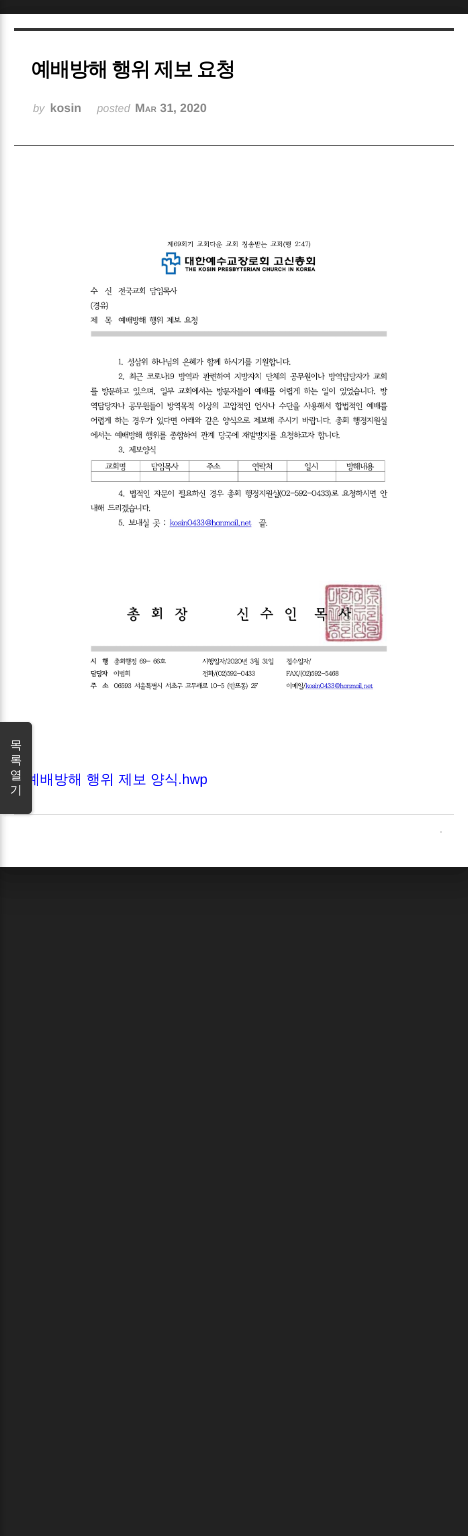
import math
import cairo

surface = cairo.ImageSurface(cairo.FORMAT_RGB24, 468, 1536)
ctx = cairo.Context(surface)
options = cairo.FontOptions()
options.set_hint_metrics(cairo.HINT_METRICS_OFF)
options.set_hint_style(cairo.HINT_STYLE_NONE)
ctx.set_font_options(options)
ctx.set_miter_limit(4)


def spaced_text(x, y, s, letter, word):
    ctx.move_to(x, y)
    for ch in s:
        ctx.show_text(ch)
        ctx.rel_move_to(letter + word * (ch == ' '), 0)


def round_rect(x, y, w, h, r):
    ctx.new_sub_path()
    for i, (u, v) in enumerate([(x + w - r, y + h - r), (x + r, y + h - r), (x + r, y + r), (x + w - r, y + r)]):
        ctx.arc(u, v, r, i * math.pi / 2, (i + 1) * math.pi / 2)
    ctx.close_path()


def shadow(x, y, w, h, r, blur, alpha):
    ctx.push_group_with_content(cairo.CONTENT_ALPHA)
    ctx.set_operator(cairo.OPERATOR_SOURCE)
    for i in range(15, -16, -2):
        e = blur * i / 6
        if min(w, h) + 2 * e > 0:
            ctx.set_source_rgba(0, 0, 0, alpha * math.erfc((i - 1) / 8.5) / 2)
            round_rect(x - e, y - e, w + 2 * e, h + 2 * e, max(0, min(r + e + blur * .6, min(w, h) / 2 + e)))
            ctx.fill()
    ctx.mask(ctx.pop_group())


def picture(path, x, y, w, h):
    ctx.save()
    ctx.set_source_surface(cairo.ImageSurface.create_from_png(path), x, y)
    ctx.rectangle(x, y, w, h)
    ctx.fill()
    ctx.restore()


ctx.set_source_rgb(0.133, 0.133, 0.133)
ctx.paint()
ctx.set_source_rgb(0, 0, 0)
shadow(0, 18, 468, 853, 0, 24, 0.5)
ctx.set_source_rgb(1, 1, 1)
ctx.rectangle(0, 14, 468, 853)
ctx.fill()
ctx.set_source_rgb(0, 0, 0)
shadow(-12, 0, 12, 1536, 0, 4, 0.3)
ctx.set_source_rgb(0.867, 0.867, 0.867)
ctx.rectangle(14, 814, 440, 1)
ctx.fill()
ctx.set_source_rgb(0, 0, 0)
shadow(1, 723, 32, 92, 4, 1.5, 0.2)
ctx.select_font_face("WenQuanYi Zen Hei Medium")
ctx.set_font_size(14)
ctx.set_source_rgb(0, 0, 1)
ctx.move_to(26, 784)
ctx.show_text("예배방해 행위 제보 양식")
ctx.set_source_rgb(0.2, 0.2, 0.2)
ctx.new_path()
ctx.move_to(0, 722)
ctx.line_to(28, 722)
ctx.curve_to(30, 722, 32, 724, 32, 726)
ctx.line_to(32, 810)
ctx.curve_to(32, 812, 30, 814, 28, 814)
ctx.line_to(0, 814)
ctx.close_path()
ctx.fill()
ctx.set_font_size(12)
ctx.set_source_rgb(1, 1, 1)
ctx.move_to(10, 749)
ctx.show_text("목")
ctx.move_to(10, 764)
ctx.show_text("록")
ctx.move_to(10, 779)
ctx.show_text("열")
ctx.move_to(10, 794)
ctx.show_text("기")
ctx.set_source_rgb(0.2, 0.2, 0.2)
ctx.rectangle(14, 28, 440, 3)
ctx.fill()
ctx.set_source_rgb(0.4, 0.4, 0.4)
ctx.rectangle(14, 145, 440, 1)
ctx.fill()
ctx.select_font_face("WenQuanYi Zen Hei", cairo.FONT_SLANT_NORMAL, cairo.FONT_WEIGHT_BOLD)
ctx.set_font_size(20)
ctx.set_source_rgb(0, 0, 0)
spaced_text(31, 76, "예배방해 행위 제보 요청", -1, -0.5)
ctx.select_font_face("Liberation Sans", cairo.FONT_SLANT_ITALIC)
ctx.set_font_size(11)
ctx.set_source_rgb(0.667, 0.667, 0.667)
ctx.move_to(33, 112)
ctx.show_text("by")
ctx.select_font_face("Liberation Sans", cairo.FONT_SLANT_NORMAL, cairo.FONT_WEIGHT_BOLD)
ctx.set_font_size(12)
ctx.set_source_rgb(0.533, 0.533, 0.533)
ctx.move_to(50, 112)
ctx.show_text("kosin")
ctx.select_font_face("Liberation Sans", cairo.FONT_SLANT_ITALIC)
ctx.set_font_size(11)
ctx.set_source_rgb(0.667, 0.667, 0.667)
ctx.move_to(97, 112)
ctx.show_text("posted")
ctx.select_font_face("Liberation Sans", cairo.FONT_SLANT_NORMAL, cairo.FONT_WEIGHT_BOLD)
ctx.set_font_size(12)
ctx.set_source_rgb(0.533, 0.533, 0.533)
ctx.move_to(135, 112)
ctx.show_text("M")
ctx.set_font_size(8)
ctx.move_to(145, 112)
ctx.show_text("AR")
ctx.set_font_size(12)
ctx.move_to(160, 112)
ctx.show_text("31, 2020")
picture("img1.png", 90, 241, 298, 449)
ctx.select_font_face("Liberation Sans")
ctx.set_font_size(14)
ctx.set_source_rgb(0, 0, 1)
ctx.move_to(178, 784)
ctx.show_text(".hwp")
ctx.set_source_rgb(0.827, 0.827, 0.827)
ctx.new_path()
ctx.arc(441, 832, 1, 0, 2 * math.pi)
ctx.fill()
surface.write_to_png("page.png")
